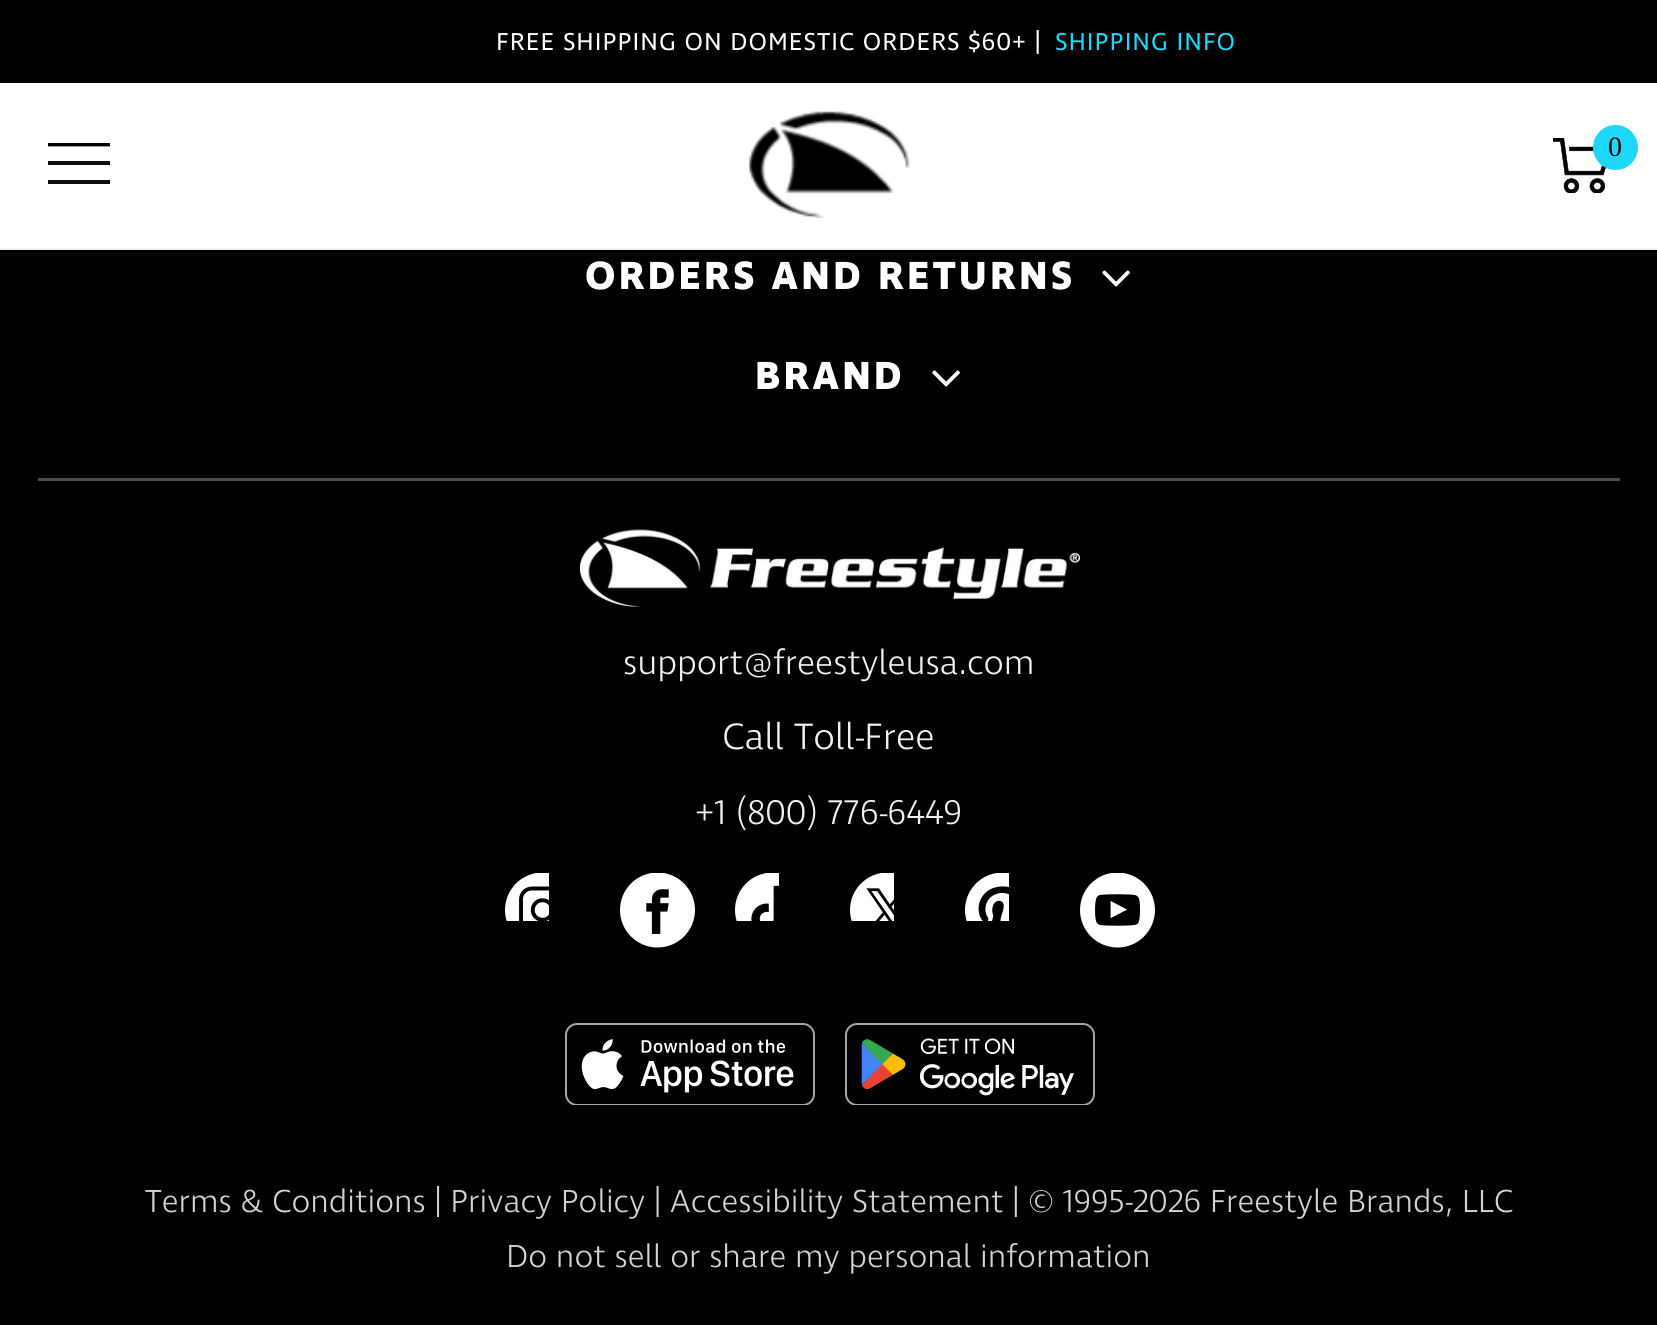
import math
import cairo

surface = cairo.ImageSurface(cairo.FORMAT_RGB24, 1657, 1325)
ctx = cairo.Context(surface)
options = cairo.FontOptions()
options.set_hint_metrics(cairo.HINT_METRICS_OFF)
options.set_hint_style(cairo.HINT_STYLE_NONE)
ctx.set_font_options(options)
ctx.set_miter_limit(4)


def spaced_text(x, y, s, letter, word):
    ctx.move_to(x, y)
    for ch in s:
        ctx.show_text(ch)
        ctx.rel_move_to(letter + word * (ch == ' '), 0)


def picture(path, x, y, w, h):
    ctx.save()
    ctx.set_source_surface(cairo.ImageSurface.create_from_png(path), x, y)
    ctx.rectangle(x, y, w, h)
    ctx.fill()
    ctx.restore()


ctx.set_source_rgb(0, 0, 0)
ctx.paint()
ctx.select_font_face("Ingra")
ctx.set_font_size(25)
ctx.set_source_rgb(1, 1, 1)
spaced_text(496, 50, "FREE SHIPPING ON DOMESTIC ORDERS $60+ |", 1, 0)
ctx.set_source_rgb(0.114, 0.847, 0.98)
spaced_text(1055, 50, "SHIPPING INFO", 1, 0)
ctx.set_source_rgb(1, 1, 1)
ctx.rectangle(0, 83, 1657, 165)
ctx.fill()
ctx.set_source_rgb(0.949, 0.949, 0.949)
ctx.rectangle(0, 248, 1657, 2)
ctx.fill()
ctx.set_source_rgb(0.051, 0.051, 0.051)
ctx.rectangle(48, 161, 62, 4)
ctx.fill()
ctx.save()
ctx.rectangle(48, 143, 62, 42)
ctx.clip()
ctx.new_path()
ctx.move_to(47.5, 144.5)
ctx.line_to(110, 144.5)
ctx.set_source_rgb(0, 0, 0)
ctx.set_line_width(3.8)
ctx.stroke()
ctx.restore()
ctx.rectangle(48, 180, 62, 4)
ctx.fill()
picture("img1.png", 749, 111, 161, 107)
picture("img2.png", 1553, 138, 53, 55)
ctx.set_source_rgb(0.114, 0.847, 0.98)
ctx.arc(1615.5, 147.5, 22.5, 0, 2 * math.pi)
ctx.fill()
ctx.select_font_face("Liberation Serif")
ctx.set_font_size(28)
ctx.set_source_rgb(0, 0, 0)
ctx.move_to(1608, 156)
ctx.show_text("0")
ctx.select_font_face("Ingra", cairo.FONT_SLANT_NORMAL, cairo.FONT_WEIGHT_BOLD)
ctx.set_font_size(40)
ctx.set_source_rgb(1, 1, 1)
spaced_text(585, 289, "ORDERS AND RETURNS", 3.25, 0)
picture("img3.png", 1102, 270, 28, 17)
spaced_text(755, 389, "BRAND", 3.25, 0)
picture("img3.png", 932, 370, 28, 17)
ctx.set_source_rgb(0.302, 0.294, 0.294)
ctx.rectangle(38, 478, 1582, 3)
ctx.fill()
picture("img4.png", 580, 529, 500, 78)
ctx.select_font_face("Ingra Light")
ctx.set_font_size(35)
ctx.set_source_rgb(0.941, 0.941, 0.941)
ctx.move_to(623, 674)
ctx.show_text("support@freestyleusa.com")
ctx.set_font_size(37.5)
ctx.move_to(722, 749)
ctx.show_text("Call Toll-Free")
ctx.set_font_size(35)
ctx.move_to(695, 824)
ctx.show_text("+1 (800) 776-6449")
picture("img5.png", 505, 873, 44, 48)
picture("img6.png", 620, 873, 75, 75)
picture("img7.png", 735, 873, 44, 48)
picture("img8.png", 850, 873, 44, 48)
picture("img9.png", 965, 873, 44, 48)
picture("img10.png", 1080, 873, 75, 75)
picture("img11.png", 565, 1023, 250, 82)
picture("img12.png", 845, 1023, 250, 82)
ctx.set_font_size(32.5)
ctx.set_source_rgb(0.824, 0.824, 0.824)
ctx.move_to(145, 1212)
ctx.show_text("Terms & Conditions | Privacy Policy | Accessibility Statement | © 1995-2026 Freestyle Brands, LLC")
ctx.move_to(506, 1267)
ctx.show_text("Do not sell or share my personal information")
surface.write_to_png("page.png")
